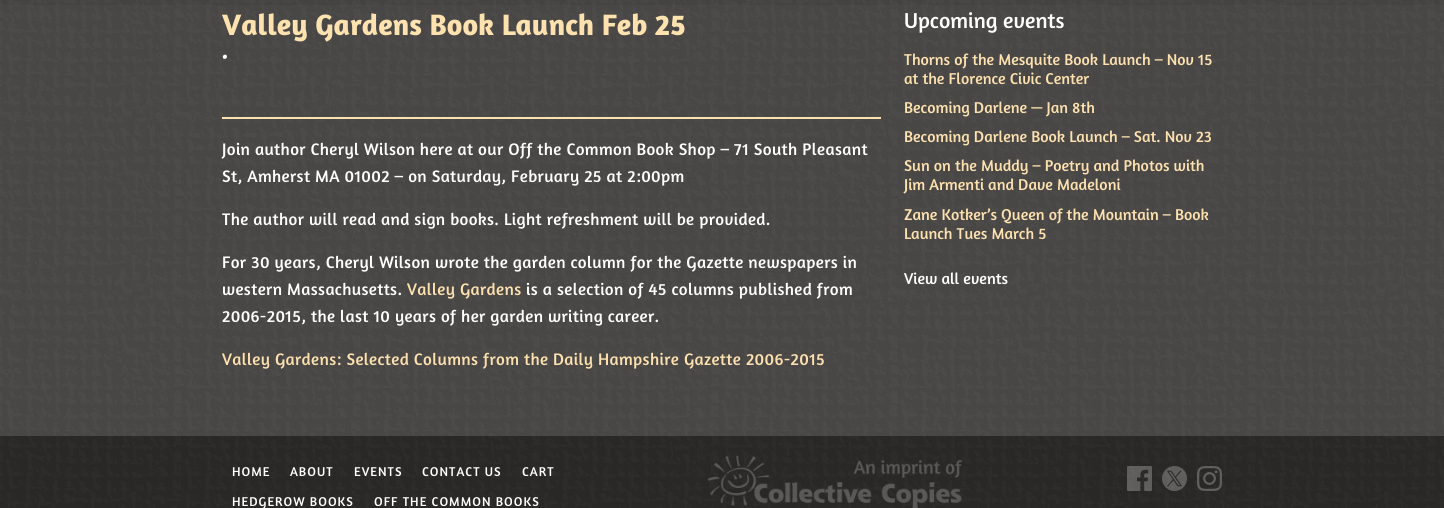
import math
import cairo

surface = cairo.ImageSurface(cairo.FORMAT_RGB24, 1444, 508)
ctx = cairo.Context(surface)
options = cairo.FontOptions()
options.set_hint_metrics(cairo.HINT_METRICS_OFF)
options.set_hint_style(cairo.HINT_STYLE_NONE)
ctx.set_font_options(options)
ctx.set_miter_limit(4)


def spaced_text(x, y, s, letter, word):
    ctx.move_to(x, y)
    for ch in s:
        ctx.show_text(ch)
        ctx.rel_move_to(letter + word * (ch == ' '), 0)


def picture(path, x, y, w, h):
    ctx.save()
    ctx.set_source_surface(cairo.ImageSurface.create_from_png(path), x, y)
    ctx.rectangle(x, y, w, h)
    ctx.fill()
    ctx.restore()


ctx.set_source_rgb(0.275, 0.267, 0.259)
ctx.paint()
picture("img1.png", 0, 0, 1444, 436)
ctx.set_source_rgba(0, 0, 0, 0.06)
ctx.rectangle(0, 0, 1444, 5)
ctx.fill()
ctx.select_font_face("Amaranth", cairo.FONT_SLANT_NORMAL, cairo.FONT_WEIGHT_BOLD)
ctx.set_font_size(30)
ctx.set_source_rgb(0.992, 0.882, 0.686)
ctx.move_to(222, 35)
ctx.show_text("Valley Gardens Book Launch Feb 25")
ctx.select_font_face("Amaranth", cairo.FONT_SLANT_ITALIC)
ctx.set_font_size(20)
ctx.set_source_rgb(1, 1, 1)
ctx.move_to(222, 63)
ctx.show_text("•")
ctx.set_source_rgb(0.992, 0.882, 0.686)
ctx.rectangle(222, 117, 659, 2)
ctx.fill()
ctx.select_font_face("Amaranth")
ctx.set_font_size(17)
ctx.set_source_rgb(1, 1, 1)
spaced_text(222, 155, "Join author Cheryl Wilson here at our Off the Common Book Shop – 71 South Pleasant", 0.35, 0)
spaced_text(222, 182, "St, Amherst MA 01002 – on Saturday, February 25 at 2:00pm", 0.35, 0)
spaced_text(222, 225, "The author will read and sign books. Light refreshment will be provided.", 0.35, 0)
spaced_text(222, 268, "For 30 years, Cheryl Wilson wrote the garden column for the Gazette newspapers in", 0.35, 0)
spaced_text(222, 295, "western Massachusetts.", 0.35, 0)
ctx.set_source_rgb(0.992, 0.882, 0.686)
spaced_text(407, 295, "Valley Gardens", 0.35, 0)
ctx.set_source_rgb(1, 1, 1)
spaced_text(526, 295, "is a selection of 45 columns published from", 0.35, 0)
spaced_text(222, 322, "2006-2015, the last 10 years of her garden writing career.", 0.35, 0)
ctx.set_source_rgb(0.992, 0.882, 0.686)
spaced_text(222, 365, "Valley Gardens: Selected Columns from the Daily Hampshire Gazette 2006-2015", 0.35, 0)
ctx.set_font_size(22)
ctx.set_source_rgb(1, 1, 1)
ctx.move_to(904, 28)
ctx.show_text("Upcoming events")
ctx.set_font_size(16)
ctx.set_source_rgb(0.992, 0.882, 0.686)
ctx.move_to(904, 65)
ctx.show_text("Thorns of the Mesquite Book Launch – Nov 15")
ctx.move_to(904, 84)
ctx.show_text("at the Florence Civic Center")
ctx.move_to(904, 113)
ctx.show_text("Becoming Darlene — Jan 8th")
ctx.move_to(904, 142)
ctx.show_text("Becoming Darlene Book Launch – Sat. Nov 23")
ctx.move_to(904, 171)
ctx.show_text("Sun on the Muddy – Poetry and Photos with")
ctx.move_to(904, 190)
ctx.show_text("Jim Armenti and Dave Madeloni")
ctx.move_to(904, 220)
ctx.show_text("Zane Kotker’s Queen of the Mountain – Book")
ctx.move_to(904, 239)
ctx.show_text("Launch Tues March 5")
ctx.set_source_rgb(1, 1, 1)
ctx.move_to(904, 284)
ctx.show_text("View all events")
ctx.set_source_rgb(0.137, 0.133, 0.129)
ctx.rectangle(0, 436, 1444, 72)
ctx.fill()
picture("img2.png", 0, 436, 1444, 72)
ctx.set_font_size(13)
ctx.set_source_rgb(1, 1, 1)
spaced_text(232, 476, "HOME", 1, 0)
spaced_text(290, 476, "ABOUT", 1, 0)
spaced_text(354, 476, "EVENTS", 1, 0)
spaced_text(422, 476, "CONTACT US", 1, 0)
spaced_text(522, 476, "CART", 1, 0)
spaced_text(232, 506, "HEDGEROW BOOKS", 1, 0)
spaced_text(374, 506, "OFF THE COMMON BOOKS", 1, 0)
picture("img3.png", 708, 456, 254, 52)
picture("img4.png", 1127, 466, 25, 25)
picture("img5.png", 1162, 466, 25, 25)
picture("img6.png", 1197, 466, 25, 25)
surface.write_to_png("page.png")
